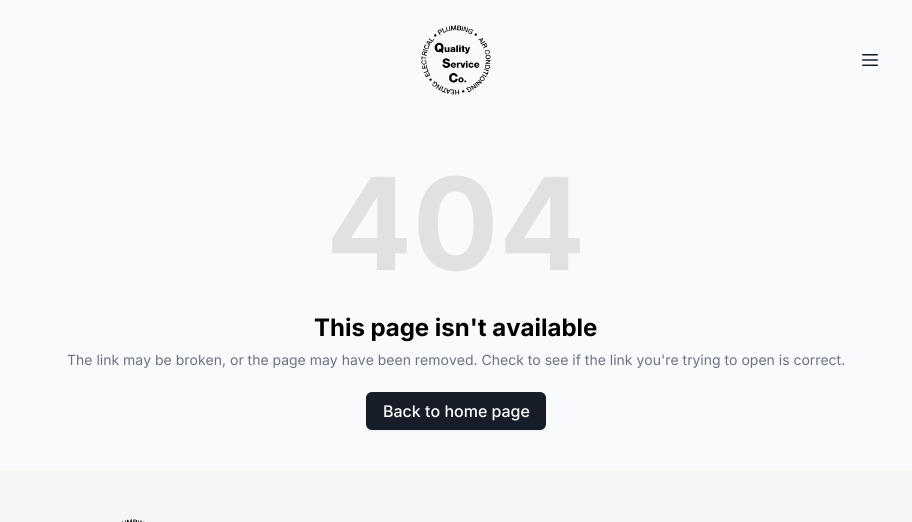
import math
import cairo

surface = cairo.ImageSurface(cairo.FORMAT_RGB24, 912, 522)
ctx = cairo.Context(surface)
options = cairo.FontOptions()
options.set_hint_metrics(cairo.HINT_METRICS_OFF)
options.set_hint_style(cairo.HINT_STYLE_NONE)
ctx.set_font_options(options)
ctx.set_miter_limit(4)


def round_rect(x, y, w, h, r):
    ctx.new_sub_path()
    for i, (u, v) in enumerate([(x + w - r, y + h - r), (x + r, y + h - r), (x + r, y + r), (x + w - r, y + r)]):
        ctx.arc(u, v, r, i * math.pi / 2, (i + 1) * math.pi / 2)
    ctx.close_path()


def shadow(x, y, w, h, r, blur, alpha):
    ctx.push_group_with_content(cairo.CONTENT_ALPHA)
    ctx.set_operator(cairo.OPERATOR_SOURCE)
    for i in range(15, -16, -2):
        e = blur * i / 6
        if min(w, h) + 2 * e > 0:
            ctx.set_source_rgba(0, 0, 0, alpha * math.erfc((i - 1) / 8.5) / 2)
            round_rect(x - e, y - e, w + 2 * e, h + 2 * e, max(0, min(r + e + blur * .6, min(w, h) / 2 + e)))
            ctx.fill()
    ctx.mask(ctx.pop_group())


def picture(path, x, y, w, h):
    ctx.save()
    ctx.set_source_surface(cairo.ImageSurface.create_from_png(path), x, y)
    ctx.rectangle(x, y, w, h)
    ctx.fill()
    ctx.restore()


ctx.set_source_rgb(0.976, 0.98, 0.984)
ctx.paint()
picture("img1.png", 421, 25, 70, 70)
picture("img2.png", 862, 54, 16, 12)
ctx.select_font_face("Inter", cairo.FONT_SLANT_NORMAL, cairo.FONT_WEIGHT_BOLD)
ctx.set_font_size(128)
ctx.set_source_rgb(0.878, 0.882, 0.886)
ctx.move_to(326, 270)
ctx.show_text("404")
ctx.set_font_size(24)
ctx.set_source_rgb(0, 0, 0)
ctx.move_to(314, 336)
ctx.show_text("This page isn't available")
ctx.select_font_face("Inter")
ctx.set_font_size(14)
ctx.set_source_rgb(0.42, 0.447, 0.502)
ctx.move_to(67, 365)
ctx.show_text("The link may be broken, or the page may have been removed. Check to see if the link you're trying to open is correct.")
ctx.set_source_rgb(0, 0, 0)
shadow(366, 393, 180, 38, 6, 1, 0.05)
ctx.set_source_rgb(0.086, 0.11, 0.157)
round_rect(366, 392, 180, 38, 6)
ctx.fill()
ctx.select_font_face("Inter Medium")
ctx.set_font_size(16)
ctx.set_source_rgb(1, 1, 1)
ctx.move_to(383, 417)
ctx.show_text("Back to home page")
ctx.set_source_rgb(0.961, 0.965, 0.957)
ctx.rectangle(0, 470, 912, 52)
ctx.fill()
picture("img3.png", 121, 519, 24, 3)
surface.write_to_png("page.png")
